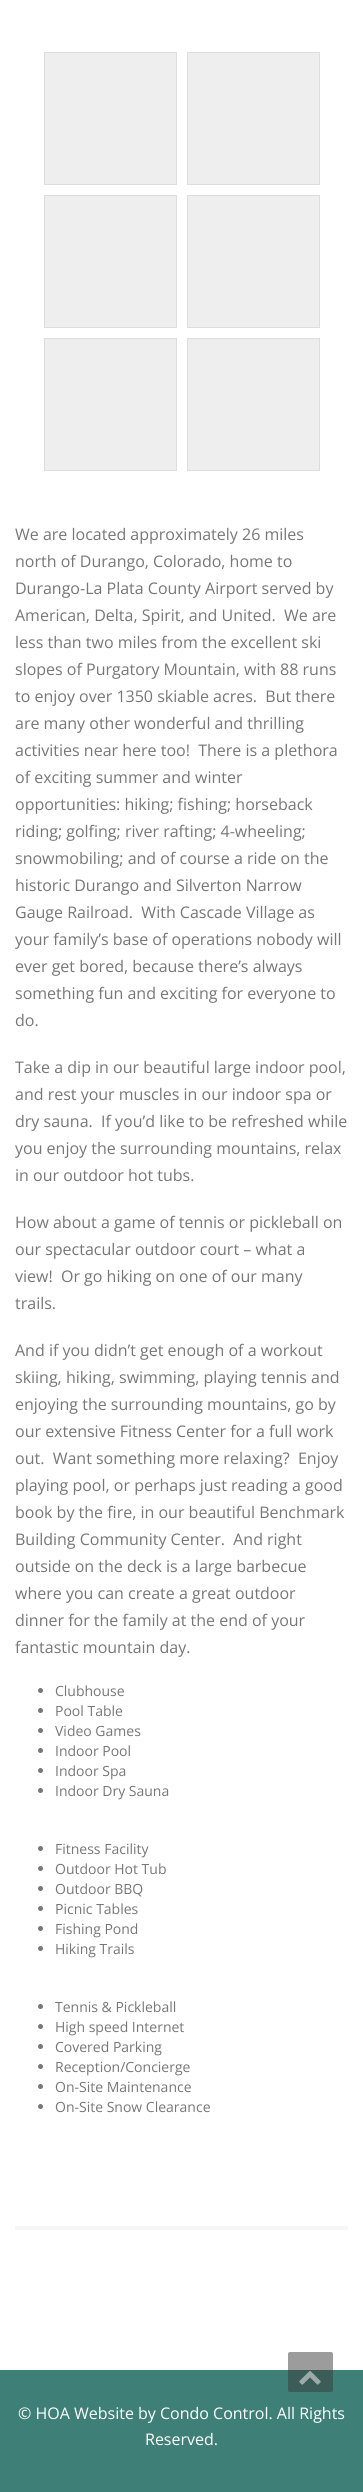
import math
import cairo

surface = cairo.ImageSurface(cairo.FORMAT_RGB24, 363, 2492)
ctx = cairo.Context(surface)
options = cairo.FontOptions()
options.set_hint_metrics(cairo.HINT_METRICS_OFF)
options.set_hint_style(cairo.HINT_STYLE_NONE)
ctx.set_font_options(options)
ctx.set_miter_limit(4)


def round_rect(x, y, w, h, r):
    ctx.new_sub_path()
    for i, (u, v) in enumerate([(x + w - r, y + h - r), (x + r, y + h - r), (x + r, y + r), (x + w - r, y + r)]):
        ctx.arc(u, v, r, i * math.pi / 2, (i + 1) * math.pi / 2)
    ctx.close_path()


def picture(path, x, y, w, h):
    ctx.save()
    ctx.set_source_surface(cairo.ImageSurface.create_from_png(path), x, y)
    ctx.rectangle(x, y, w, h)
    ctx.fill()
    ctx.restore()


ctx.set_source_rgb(0.243, 0.498, 0.467)
ctx.paint()
ctx.set_source_rgb(1, 1, 1)
ctx.rectangle(0, 0, 363, 2370)
ctx.fill()
ctx.set_source_rgb(0.933, 0.933, 0.933)
ctx.rectangle(44.5, 52.5, 132, 132)
ctx.fill_preserve()
ctx.set_source_rgb(0.867, 0.867, 0.867)
ctx.set_line_width(1)
ctx.stroke()
ctx.set_source_rgb(0.933, 0.933, 0.933)
ctx.rectangle(187.5, 52.5, 132, 132)
ctx.fill_preserve()
ctx.set_source_rgb(0.867, 0.867, 0.867)
ctx.stroke()
ctx.set_source_rgb(0.933, 0.933, 0.933)
ctx.rectangle(44.5, 195.5, 132, 132)
ctx.fill_preserve()
ctx.set_source_rgb(0.867, 0.867, 0.867)
ctx.stroke()
ctx.set_source_rgb(0.933, 0.933, 0.933)
ctx.rectangle(187.5, 195.5, 132, 132)
ctx.fill_preserve()
ctx.set_source_rgb(0.867, 0.867, 0.867)
ctx.stroke()
ctx.set_source_rgb(0.933, 0.933, 0.933)
ctx.rectangle(44.5, 338.5, 132, 132)
ctx.fill_preserve()
ctx.set_source_rgb(0.867, 0.867, 0.867)
ctx.stroke()
ctx.set_source_rgb(0.933, 0.933, 0.933)
ctx.rectangle(187.5, 338.5, 132, 132)
ctx.fill_preserve()
ctx.set_source_rgb(0.867, 0.867, 0.867)
ctx.stroke()
ctx.select_font_face("Open Sans")
ctx.set_font_size(16)
ctx.set_source_rgb(0.467, 0.467, 0.467)
ctx.move_to(15, 540)
ctx.show_text("We are located approximately 26 miles")
ctx.move_to(15, 567)
ctx.show_text("north of Durango, Colorado, home to")
ctx.move_to(15, 594)
ctx.show_text("Durango-La Plata County Airport served by")
ctx.move_to(15, 621)
ctx.show_text("American, Delta, Spirit, and United.  We are")
ctx.move_to(15, 648)
ctx.show_text("less than two miles from the excellent ski")
ctx.move_to(15, 675)
ctx.show_text("slopes of Purgatory Mountain, with 88 runs")
ctx.move_to(15, 702)
ctx.show_text("to enjoy over 1350 skiable acres.  But there")
ctx.move_to(15, 729)
ctx.show_text("are many other wonderful and thrilling")
ctx.move_to(15, 756)
ctx.show_text("activities near here too!  There is a plethora")
ctx.move_to(15, 783)
ctx.show_text("of exciting summer and winter")
ctx.move_to(15, 810)
ctx.show_text("opportunities: hiking; fishing; horseback")
ctx.move_to(15, 837)
ctx.show_text("riding; golfing; river rafting; 4-wheeling;")
ctx.move_to(15, 864)
ctx.show_text("snowmobiling; and of course a ride on the")
ctx.move_to(15, 891)
ctx.show_text("historic Durango and Silverton Narrow")
ctx.move_to(15, 918)
ctx.show_text("Gauge Railroad.  With Cascade Village as")
ctx.move_to(15, 945)
ctx.show_text("your family’s base of operations nobody will")
ctx.move_to(15, 972)
ctx.show_text("ever get bored, because there’s always")
ctx.move_to(15, 999)
ctx.show_text("something fun and exciting for everyone to")
ctx.move_to(15, 1026)
ctx.show_text("do.")
ctx.move_to(15, 1073)
ctx.show_text("Take a dip in our beautiful large indoor pool,")
ctx.move_to(15, 1100)
ctx.show_text("and rest your muscles in our indoor spa or")
ctx.move_to(15, 1127)
ctx.show_text("dry sauna.  If you’d like to be refreshed while")
ctx.move_to(15, 1154)
ctx.show_text("you enjoy the surrounding mountains, relax")
ctx.move_to(15, 1181)
ctx.show_text("in our outdoor hot tubs.")
ctx.move_to(15, 1228)
ctx.show_text("How about a game of tennis or pickleball on")
ctx.move_to(15, 1255)
ctx.show_text("our spectacular outdoor court – what a")
ctx.move_to(15, 1282)
ctx.show_text("view!  Or go hiking on one of our many")
ctx.move_to(15, 1309)
ctx.show_text("trails.")
ctx.move_to(15, 1356)
ctx.show_text("And if you didn’t get enough of a workout")
ctx.move_to(15, 1383)
ctx.show_text("skiing, hiking, swimming, playing tennis and")
ctx.move_to(15, 1410)
ctx.show_text("enjoying the surrounding mountains, go by")
ctx.move_to(15, 1437)
ctx.show_text("our extensive Fitness Center for a full work")
ctx.move_to(15, 1464)
ctx.show_text("out.  Want something more relaxing?  Enjoy")
ctx.move_to(15, 1491)
ctx.show_text("playing pool, or perhaps just reading a good")
ctx.move_to(15, 1518)
ctx.show_text("book by the fire, in our beautiful Benchmark")
ctx.move_to(15, 1545)
ctx.show_text("Building Community Center.  And right")
ctx.move_to(15, 1572)
ctx.show_text("outside on the deck is a large barbecue")
ctx.move_to(15, 1599)
ctx.show_text("where you can create a great outdoor")
ctx.move_to(15, 1626)
ctx.show_text("dinner for the family at the end of your")
ctx.move_to(15, 1653)
ctx.show_text("fantastic mountain day.")
ctx.new_path()
ctx.arc(40.5, 1690.5, 2.5, 0, 2 * math.pi)
ctx.fill()
ctx.set_font_size(14)
ctx.move_to(55, 1696)
ctx.show_text("Clubhouse")
ctx.new_path()
ctx.arc(40.5, 1710.5, 2.5, 0, 2 * math.pi)
ctx.fill()
ctx.move_to(55, 1716)
ctx.show_text("Pool Table")
ctx.new_path()
ctx.arc(40.5, 1730.5, 2.5, 0, 2 * math.pi)
ctx.fill()
ctx.move_to(55, 1736)
ctx.show_text("Video Games")
ctx.new_path()
ctx.arc(40.5, 1750.5, 2.5, 0, 2 * math.pi)
ctx.fill()
ctx.move_to(55, 1756)
ctx.show_text("Indoor Pool")
ctx.new_path()
ctx.arc(40.5, 1770.5, 2.5, 0, 2 * math.pi)
ctx.fill()
ctx.move_to(55, 1776)
ctx.show_text("Indoor Spa")
ctx.new_path()
ctx.arc(40.5, 1790.5, 2.5, 0, 2 * math.pi)
ctx.fill()
ctx.move_to(55, 1796)
ctx.show_text("Indoor Dry Sauna")
ctx.new_path()
ctx.arc(40.5, 1848.5, 2.5, 0, 2 * math.pi)
ctx.fill()
ctx.move_to(55, 1854)
ctx.show_text("Fitness Facility")
ctx.new_path()
ctx.arc(40.5, 1868.5, 2.5, 0, 2 * math.pi)
ctx.fill()
ctx.move_to(55, 1874)
ctx.show_text("Outdoor Hot Tub")
ctx.new_path()
ctx.arc(40.5, 1888.5, 2.5, 0, 2 * math.pi)
ctx.fill()
ctx.move_to(55, 1894)
ctx.show_text("Outdoor BBQ")
ctx.new_path()
ctx.arc(40.5, 1908.5, 2.5, 0, 2 * math.pi)
ctx.fill()
ctx.move_to(55, 1914)
ctx.show_text("Picnic Tables")
ctx.new_path()
ctx.arc(40.5, 1928.5, 2.5, 0, 2 * math.pi)
ctx.fill()
ctx.move_to(55, 1934)
ctx.show_text("Fishing Pond")
ctx.new_path()
ctx.arc(40.5, 1948.5, 2.5, 0, 2 * math.pi)
ctx.fill()
ctx.move_to(55, 1954)
ctx.show_text("Hiking Trails")
ctx.new_path()
ctx.arc(40.5, 2006.5, 2.5, 0, 2 * math.pi)
ctx.fill()
ctx.move_to(55, 2012)
ctx.show_text("Tennis & Pickleball")
ctx.new_path()
ctx.arc(40.5, 2026.5, 2.5, 0, 2 * math.pi)
ctx.fill()
ctx.move_to(55, 2032)
ctx.show_text("High speed Internet")
ctx.new_path()
ctx.arc(40.5, 2046.5, 2.5, 0, 2 * math.pi)
ctx.fill()
ctx.move_to(55, 2052)
ctx.show_text("Covered Parking")
ctx.new_path()
ctx.arc(40.5, 2066.5, 2.5, 0, 2 * math.pi)
ctx.fill()
ctx.move_to(55, 2072)
ctx.show_text("Reception/Concierge")
ctx.new_path()
ctx.arc(40.5, 2086.5, 2.5, 0, 2 * math.pi)
ctx.fill()
ctx.move_to(55, 2092)
ctx.show_text("On-Site Maintenance")
ctx.new_path()
ctx.arc(40.5, 2106.5, 2.5, 0, 2 * math.pi)
ctx.fill()
ctx.move_to(55, 2112)
ctx.show_text("On-Site Snow Clearance")
ctx.set_source_rgb(0.961, 0.961, 0.961)
ctx.rectangle(15, 2226, 333, 4)
ctx.fill()
ctx.set_source_rgba(0.231, 0.231, 0.231, 0.5)
round_rect(288, 2352, 45, 40, 2)
ctx.fill()
picture("img1.png", 299, 2371, 22, 14)
ctx.set_font_size(16)
ctx.set_source_rgb(1, 1, 1)
ctx.move_to(18, 2419)
ctx.show_text("© HOA Website by Condo Control. All Rights")
ctx.move_to(145, 2445)
ctx.show_text("Reserved.")
surface.write_to_png("page.png")
